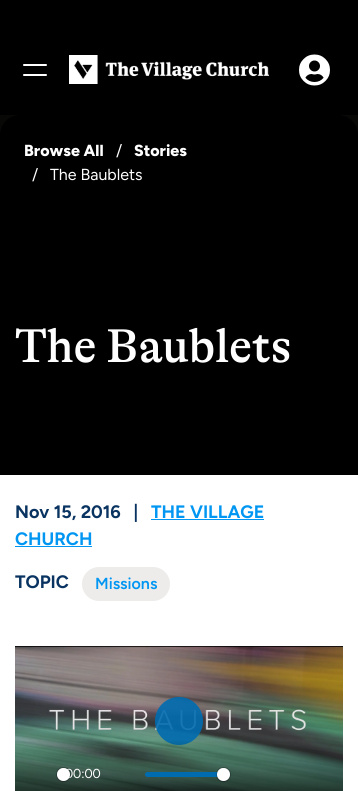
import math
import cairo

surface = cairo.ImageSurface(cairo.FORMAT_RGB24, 358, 791)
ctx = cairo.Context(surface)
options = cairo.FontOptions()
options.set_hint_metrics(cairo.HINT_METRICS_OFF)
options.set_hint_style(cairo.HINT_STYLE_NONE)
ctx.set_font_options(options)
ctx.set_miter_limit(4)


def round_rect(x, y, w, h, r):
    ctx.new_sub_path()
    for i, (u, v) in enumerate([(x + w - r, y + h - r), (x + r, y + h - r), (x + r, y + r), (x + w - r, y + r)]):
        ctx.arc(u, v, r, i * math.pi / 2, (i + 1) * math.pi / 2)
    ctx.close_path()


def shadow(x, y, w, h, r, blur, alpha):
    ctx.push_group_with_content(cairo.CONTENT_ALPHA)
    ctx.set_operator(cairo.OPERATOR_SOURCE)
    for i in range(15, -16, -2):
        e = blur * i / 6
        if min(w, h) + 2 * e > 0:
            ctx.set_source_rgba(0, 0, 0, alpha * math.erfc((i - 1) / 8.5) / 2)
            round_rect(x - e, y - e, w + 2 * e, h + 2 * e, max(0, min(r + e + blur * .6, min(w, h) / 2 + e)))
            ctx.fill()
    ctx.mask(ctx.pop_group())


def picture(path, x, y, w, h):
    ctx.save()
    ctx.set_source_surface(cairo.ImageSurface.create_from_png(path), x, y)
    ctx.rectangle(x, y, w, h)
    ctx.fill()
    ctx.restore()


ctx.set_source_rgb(1, 1, 1)
ctx.paint()
ctx.set_source_rgb(0, 0, 0)
ctx.rectangle(0, 0, 358, 115)
ctx.fill()
ctx.set_source_rgb(1, 1, 1)
round_rect(23, 64, 24, 2, 1)
ctx.fill()
round_rect(23, 74, 24, 2, 1)
ctx.fill()
picture("img1.png", 69, 55, 200, 29)
picture("img2.png", 299, 54, 31, 32)
ctx.set_source_rgb(0.035, 0.035, 0.031)
ctx.rectangle(0, 115, 358, 20)
ctx.fill()
ctx.set_source_rgb(0, 0, 0)
ctx.new_path()
ctx.move_to(20, 115)
ctx.line_to(338, 115)
ctx.curve_to(349, 115, 358, 124, 358, 135)
ctx.line_to(358, 475)
ctx.line_to(0, 475)
ctx.line_to(0, 135)
ctx.curve_to(0, 124, 9, 115, 20, 115)
ctx.close_path()
ctx.fill()
ctx.select_font_face("Figtree ExtraBold")
ctx.set_font_size(16)
ctx.set_source_rgb(1, 1, 1)
ctx.move_to(24, 156)
ctx.show_text("Browse All")
ctx.select_font_face("Figtree")
ctx.move_to(116, 156)
ctx.show_text("/")
ctx.select_font_face("Figtree ExtraBold")
ctx.move_to(134, 156)
ctx.show_text("Stories")
ctx.select_font_face("Figtree")
ctx.move_to(32, 180)
ctx.show_text("/")
ctx.move_to(50, 180)
ctx.show_text("The Baublets")
ctx.select_font_face("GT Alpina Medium")
ctx.set_font_size(48)
ctx.move_to(15, 362)
ctx.show_text("The Baublets")
ctx.select_font_face("Figtree", cairo.FONT_SLANT_NORMAL, cairo.FONT_WEIGHT_BOLD)
ctx.set_font_size(18)
ctx.set_source_rgb(0.039, 0.2, 0.376)
ctx.move_to(15, 518)
ctx.show_text("Nov 15, 2016   |")
ctx.set_source_rgb(0, 0.588, 0.949)
ctx.move_to(151, 518)
ctx.show_text("THE VILLAGE")
ctx.rectangle(151, 519, 113, 1)
ctx.fill()
ctx.move_to(15, 545)
ctx.show_text("CHURCH")
ctx.rectangle(15, 546, 77, 1)
ctx.fill()
ctx.set_source_rgb(0.039, 0.2, 0.376)
ctx.move_to(15, 588)
ctx.show_text("TOPIC")
ctx.set_source_rgb(0.929, 0.925, 0.918)
round_rect(82, 567, 88, 34, 17)
ctx.fill()
ctx.select_font_face("Figtree SemiBold")
ctx.set_font_size(16)
ctx.set_source_rgb(0, 0.588, 0.949)
ctx.move_to(95, 589)
ctx.show_text("Missions")
picture("img3.png", 15, 646, 328, 145)
ctx.set_source_rgba(0, 0.424, 0.686, 0.9)
ctx.arc(179, 721, 24, 0, 2 * math.pi)
ctx.fill()
gradient = cairo.LinearGradient(179, 739, 179, 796)
gradient.add_color_stop_rgba(0, 0, 0, 0, 0)
gradient.add_color_stop_rgba(1, 0, 0, 0, 0.75)
ctx.set_source(gradient)
ctx.rectangle(15, 741, 328, 50)
ctx.fill()
ctx.select_font_face("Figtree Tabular")
ctx.set_font_size(13)
ctx.set_source_rgb(1, 1, 1)
ctx.move_to(65, 778)
ctx.show_text("00:00")
ctx.new_path()
ctx.arc(63.5, 774.5, 7, 0, 2 * math.pi)
ctx.set_source_rgba(0.137, 0.157, 0.184, 0.2)
ctx.set_line_width(1)
ctx.stroke()
ctx.set_source_rgb(0.137, 0.157, 0.184)
shadow(57, 769, 13, 13, 6.5, 0.5, 0.15)
ctx.set_source_rgb(1, 1, 1)
ctx.arc(63.5, 774.5, 6.5, 0, 2 * math.pi)
ctx.fill()
ctx.set_source_rgb(0, 0.424, 0.686)
round_rect(145, 772, 85, 5, 2.5)
ctx.fill()
ctx.arc(223.5, 774.5, 7, 0, 2 * math.pi)
ctx.set_source_rgba(0.137, 0.157, 0.184, 0.2)
ctx.stroke()
ctx.set_source_rgb(0.137, 0.157, 0.184)
shadow(217, 769, 13, 13, 6.5, 0.5, 0.15)
ctx.set_source_rgb(1, 1, 1)
ctx.arc(223.5, 774.5, 6.5, 0, 2 * math.pi)
ctx.fill()
surface.write_to_png("page.png")
